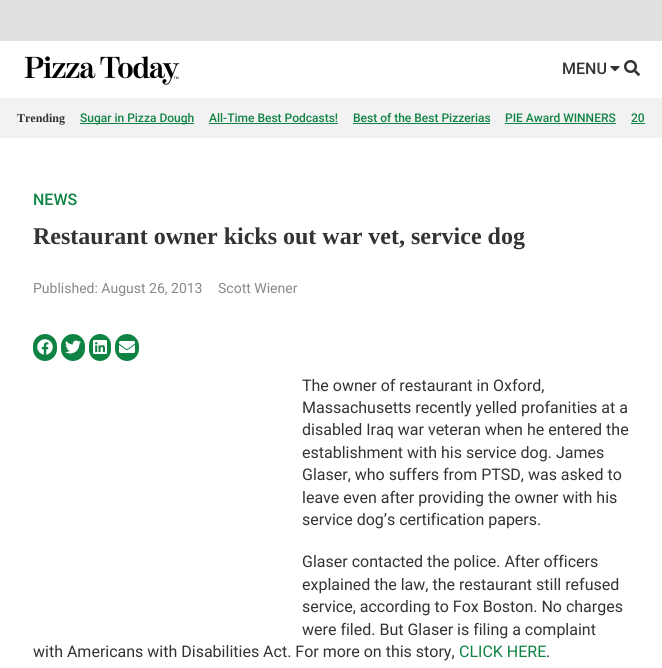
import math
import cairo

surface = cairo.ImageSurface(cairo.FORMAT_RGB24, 662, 668)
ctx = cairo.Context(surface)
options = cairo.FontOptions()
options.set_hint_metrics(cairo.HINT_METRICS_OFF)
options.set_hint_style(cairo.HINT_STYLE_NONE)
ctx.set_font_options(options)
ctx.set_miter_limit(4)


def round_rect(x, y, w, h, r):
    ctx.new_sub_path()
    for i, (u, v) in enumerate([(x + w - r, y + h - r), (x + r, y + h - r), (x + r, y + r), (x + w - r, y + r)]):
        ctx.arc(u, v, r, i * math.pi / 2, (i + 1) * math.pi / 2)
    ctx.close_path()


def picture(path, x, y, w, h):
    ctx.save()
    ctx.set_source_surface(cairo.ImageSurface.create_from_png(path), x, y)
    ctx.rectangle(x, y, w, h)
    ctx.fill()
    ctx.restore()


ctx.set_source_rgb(1, 1, 1)
ctx.paint()
ctx.set_source_rgb(0.878, 0.878, 0.878)
ctx.rectangle(0, 0, 662, 41)
ctx.fill()
picture("img1.png", 24, 56, 156, 29)
ctx.select_font_face("Roboto Medium")
ctx.set_font_size(16)
ctx.set_source_rgb(0.2, 0.2, 0.2)
ctx.move_to(562, 74)
ctx.show_text("MENU")
picture("img2.png", 610, 66, 10, 6)
picture("img3.png", 624, 60, 16, 16)
ctx.set_source_rgb(0.949, 0.949, 0.949)
ctx.rectangle(0, 98, 662, 40)
ctx.fill()
ctx.save()
ctx.rectangle(17, 106, 628, 24)
ctx.clip()
ctx.select_font_face("Liberation Serif", cairo.FONT_SLANT_NORMAL, cairo.FONT_WEIGHT_BOLD)
ctx.set_font_size(12)
ctx.set_source_rgb(0.2, 0.2, 0.2)
ctx.move_to(17, 122)
ctx.show_text("Trending")
ctx.restore()
ctx.set_source_rgb(0.059, 0.514, 0.263)
ctx.rectangle(80, 123, 114, 1)
ctx.fill()
ctx.set_font_size(12)
ctx.move_to(80, 122)
ctx.show_text("Sugar in Pizza Dough")
ctx.move_to(209, 122)
ctx.show_text("All-Time Best Podcasts!")
ctx.rectangle(209, 123, 129, 1)
ctx.fill()
ctx.move_to(353, 122)
ctx.show_text("Best of the Best Pizzerias")
ctx.rectangle(353, 123, 137, 1)
ctx.fill()
ctx.move_to(505, 122)
ctx.show_text("PIE Award WINNERS")
ctx.rectangle(505, 123, 111, 1)
ctx.fill()
ctx.move_to(631, 122)
ctx.show_text("20")
ctx.rectangle(631, 123, 14, 1)
ctx.fill()
ctx.set_font_size(16)
ctx.move_to(33, 205)
ctx.show_text("NEWS")
ctx.select_font_face("Liberation Serif", cairo.FONT_SLANT_NORMAL, cairo.FONT_WEIGHT_BOLD)
ctx.set_font_size(24)
ctx.set_source_rgb(0.2, 0.2, 0.2)
ctx.move_to(33, 244)
ctx.show_text("Restaurant owner kicks out war vet, service dog")
ctx.select_font_face("Roboto")
ctx.set_font_size(14)
ctx.set_source_rgb(0.533, 0.533, 0.533)
ctx.move_to(33, 293)
ctx.show_text("Published: August 26, 2013")
ctx.move_to(218, 293)
ctx.show_text("Scott Wiener")
ctx.set_source_rgb(0.059, 0.514, 0.263)
round_rect(33, 334, 24, 27, 12)
ctx.fill()
picture("img4.png", 37, 339, 16, 16)
round_rect(61, 334, 24, 27, 12)
ctx.fill()
picture("img5.png", 65, 340, 16, 14)
round_rect(89, 334, 22, 27, 11)
ctx.fill()
picture("img6.png", 93, 340, 14, 14)
round_rect(115, 334, 24, 27, 12)
ctx.fill()
picture("img7.png", 119, 341, 16, 12)
ctx.set_font_size(16)
ctx.set_source_rgb(0.2, 0.2, 0.2)
ctx.move_to(302, 391)
ctx.show_text("The owner of restaurant in Oxford,")
ctx.move_to(302, 413)
ctx.show_text("Massachusetts recently yelled profanities at a")
ctx.move_to(302, 435)
ctx.show_text("disabled Iraq war veteran when he entered the")
ctx.move_to(302, 458)
ctx.show_text("establishment with his service dog. James")
ctx.move_to(302, 480)
ctx.show_text("Glaser, who suffers from PTSD, was asked to")
ctx.move_to(302, 503)
ctx.show_text("leave even after providing the owner with his")
ctx.move_to(302, 525)
ctx.show_text("service dog’s certification papers.")
ctx.move_to(302, 567)
ctx.show_text("Glaser contacted the police. After officers")
ctx.move_to(302, 590)
ctx.show_text("explained the law, the restaurant still refused")
ctx.move_to(302, 612)
ctx.show_text("service, according to Fox Boston. No charges")
ctx.move_to(302, 635)
ctx.show_text("were filed. But Glaser is filing a complaint")
ctx.move_to(33, 657)
ctx.show_text("with Americans with Disabilities Act. For more on this story,")
ctx.set_source_rgb(0.059, 0.514, 0.263)
ctx.move_to(459, 657)
ctx.show_text("CLICK HERE")
ctx.set_source_rgb(0.2, 0.2, 0.2)
ctx.move_to(546, 657)
ctx.show_text(".")
surface.write_to_png("page.png")
